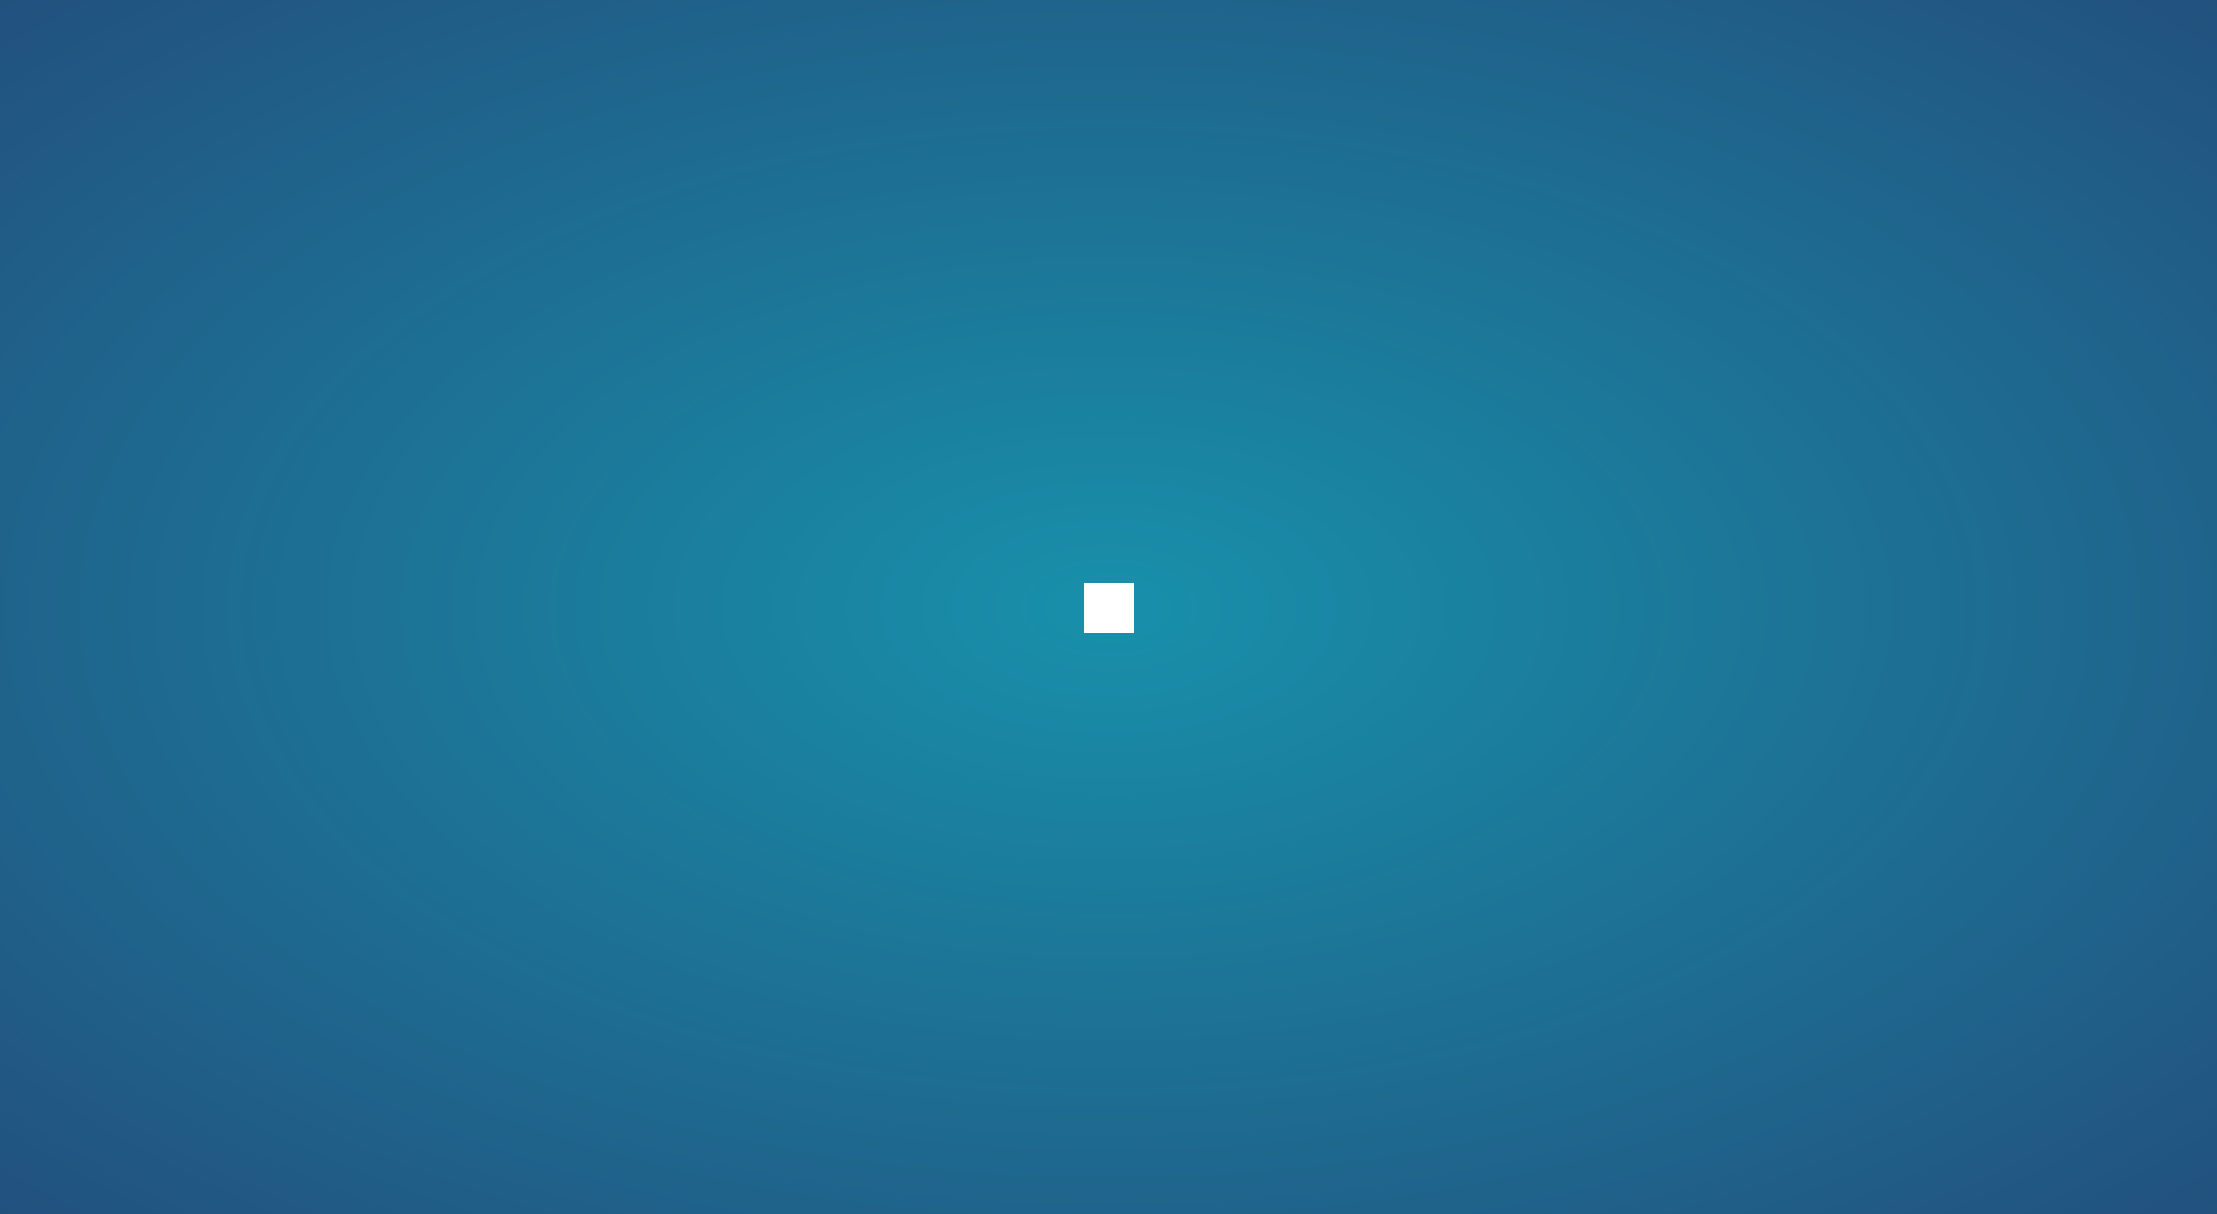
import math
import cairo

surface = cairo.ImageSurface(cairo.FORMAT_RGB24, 2217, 1214)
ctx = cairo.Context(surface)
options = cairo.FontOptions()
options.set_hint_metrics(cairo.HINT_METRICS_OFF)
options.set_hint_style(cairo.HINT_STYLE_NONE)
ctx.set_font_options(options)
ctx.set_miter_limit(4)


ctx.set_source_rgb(1, 1, 1)
ctx.paint()
gradient = cairo.RadialGradient(0, 0, 0, 0, 0, 1)
gradient.set_matrix(cairo.Matrix(1 / 1568, 0, 0, 1 / 859, -1 * 1109 / 1568, -1 * 608 / 859))
gradient.add_color_stop_rgba(0, 0.094, 0.565, 0.671, 1)
gradient.add_color_stop_rgba(1, 0.133, 0.318, 0.494, 1)
ctx.set_source(gradient)
ctx.rectangle(0, 0, 2217, 1214)
ctx.fill()
ctx.set_source_rgb(1, 1, 1)
ctx.rectangle(1084, 583, 50, 50)
ctx.fill()
surface.write_to_png("page.png")
